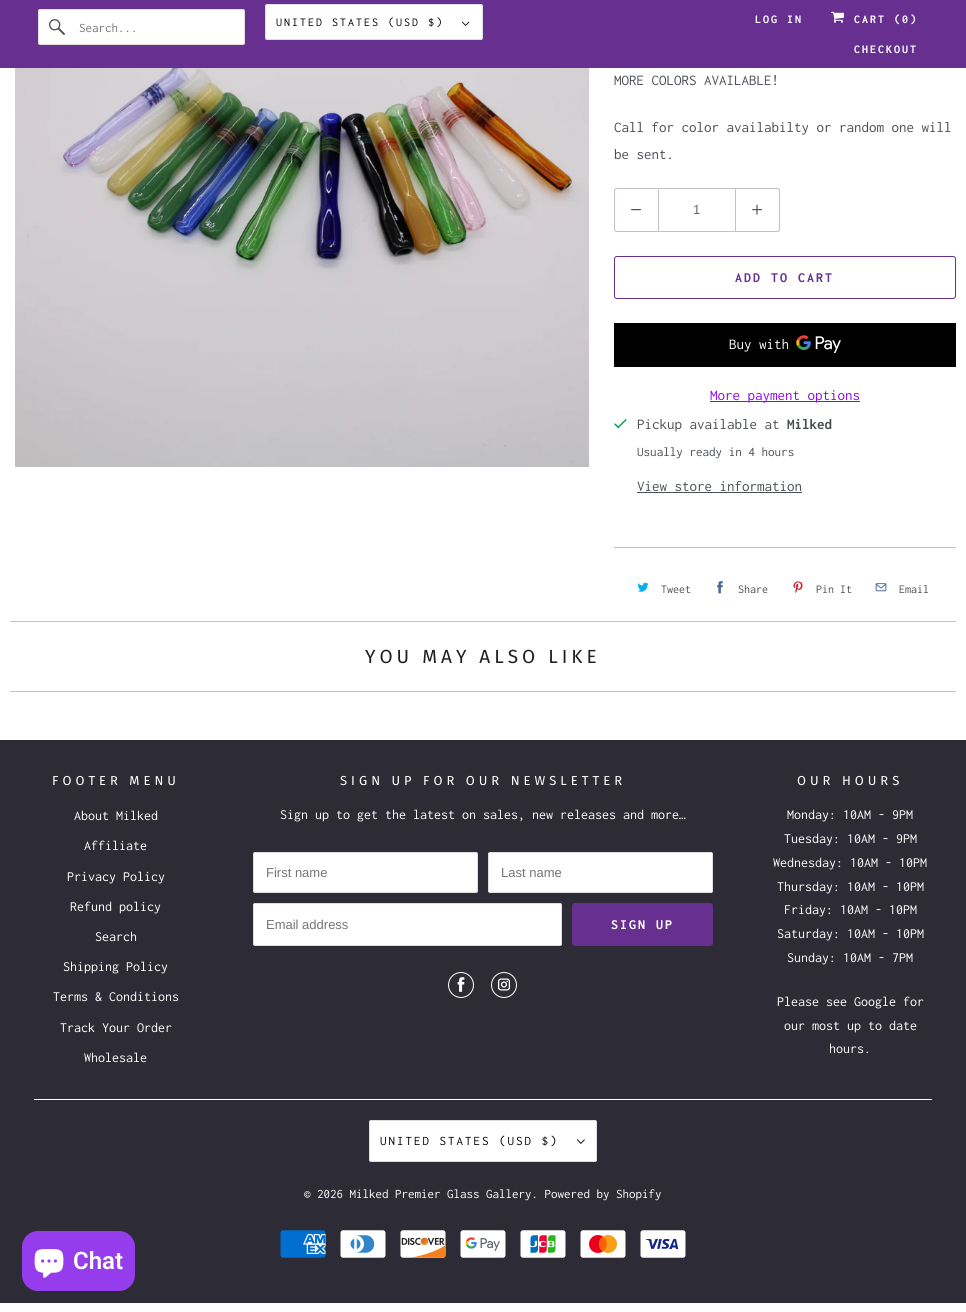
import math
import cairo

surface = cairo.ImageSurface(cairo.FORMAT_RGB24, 966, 1312)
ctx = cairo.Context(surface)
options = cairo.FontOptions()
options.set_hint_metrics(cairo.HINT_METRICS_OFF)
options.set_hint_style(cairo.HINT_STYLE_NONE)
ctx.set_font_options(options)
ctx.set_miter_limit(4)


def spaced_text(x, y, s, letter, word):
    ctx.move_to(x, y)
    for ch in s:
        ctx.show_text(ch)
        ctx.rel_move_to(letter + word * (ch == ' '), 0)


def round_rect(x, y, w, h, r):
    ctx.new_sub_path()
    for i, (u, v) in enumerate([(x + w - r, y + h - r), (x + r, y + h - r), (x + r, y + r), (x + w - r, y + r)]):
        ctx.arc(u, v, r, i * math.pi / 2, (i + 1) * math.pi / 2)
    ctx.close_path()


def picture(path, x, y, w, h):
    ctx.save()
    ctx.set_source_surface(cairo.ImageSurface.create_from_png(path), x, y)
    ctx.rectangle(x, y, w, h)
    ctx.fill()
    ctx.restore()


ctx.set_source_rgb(1, 1, 1)
ctx.paint()
ctx.set_source_rgb(0.404, 0.184, 0.565)
ctx.rectangle(0, 0, 966, 68)
ctx.fill()
ctx.set_source_rgb(1, 1, 1)
round_rect(38.5, 9.5, 206, 35, 1.5)
ctx.fill_preserve()
ctx.set_source_rgb(0.875, 0.875, 0.875)
ctx.set_line_width(1)
ctx.stroke()
picture("img1.png", 49, 19, 16, 16)
ctx.select_font_face("Inconsolata")
ctx.set_font_size(13)
ctx.set_source_rgb(0.459, 0.459, 0.459)
ctx.move_to(79, 32)
ctx.show_text("Search...")
ctx.set_source_rgb(1, 1, 1)
round_rect(265.5, 4.5, 217, 35, 1.5)
ctx.fill_preserve()
ctx.set_source_rgb(0.875, 0.875, 0.875)
ctx.stroke()
ctx.set_font_size(12)
ctx.set_source_rgb(0, 0, 0)
spaced_text(276, 26, "UNITED STATES (USD $)", 2, 0)
picture("img2.png", 462, 21, 8, 5)
ctx.select_font_face("Inconsolata", cairo.FONT_SLANT_NORMAL, cairo.FONT_WEIGHT_BOLD)
ctx.set_source_rgb(1, 1, 1)
spaced_text(755, 23, "LOG IN", 2, 0)
picture("img3.png", 831, 11, 13, 12)
spaced_text(854, 23, "CART (0)", 2, 0)
spaced_text(854, 53, "CHECKOUT", 2, 0)
picture("img4.png", 15, 68, 574, 399)
ctx.select_font_face("Inconsolata")
ctx.set_font_size(15)
ctx.set_source_rgb(0.294, 0.31, 0.329)
ctx.move_to(614, 85)
ctx.show_text("MORE COLORS AVAILABLE!")
ctx.move_to(614, 132)
ctx.show_text("Call for color availabilty or random one will")
ctx.move_to(614, 159)
ctx.show_text("be sent.")
ctx.set_source_rgb(0.761, 0.757, 0.8)
ctx.set_fill_rule(cairo.FILL_RULE_EVEN_ODD)
ctx.new_path()
ctx.move_to(617, 188)
ctx.line_to(658, 188)
ctx.line_to(658, 232)
ctx.line_to(617, 232)
ctx.curve_to(615, 232, 614, 231, 614, 229)
ctx.line_to(614, 191)
ctx.curve_to(614, 189, 615, 188, 617, 188)
ctx.close_path()
ctx.move_to(617, 189)
ctx.line_to(658, 189)
ctx.line_to(658, 231)
ctx.line_to(617, 231)
ctx.curve_to(616, 231, 615, 230, 615, 229)
ctx.line_to(615, 191)
ctx.curve_to(615, 190, 616, 189, 617, 189)
ctx.close_path()
ctx.fill()
picture("img5.png", 631, 209, 10, 2)
ctx.rectangle(658.5, 188.5, 77, 43)
ctx.stroke()
ctx.select_font_face("Liberation Sans")
ctx.set_font_size(13)
ctx.set_source_rgb(0.373, 0.416, 0.49)
ctx.move_to(693, 214)
ctx.show_text("1")
ctx.set_source_rgb(0.761, 0.757, 0.8)
ctx.new_path()
ctx.move_to(736, 188)
ctx.line_to(777, 188)
ctx.curve_to(779, 188, 780, 189, 780, 191)
ctx.line_to(780, 229)
ctx.curve_to(780, 231, 779, 232, 777, 232)
ctx.line_to(736, 232)
ctx.close_path()
ctx.move_to(736, 189)
ctx.line_to(777, 189)
ctx.curve_to(778, 189, 779, 190, 779, 191)
ctx.line_to(779, 229)
ctx.curve_to(779, 230, 778, 231, 777, 231)
ctx.line_to(736, 231)
ctx.close_path()
ctx.fill()
picture("img6.png", 752, 204, 10, 11)
round_rect(614.5, 256.5, 341, 42, 2.5)
ctx.set_source_rgb(0.404, 0.184, 0.565)
ctx.stroke()
ctx.select_font_face("Inconsolata", cairo.FONT_SLANT_NORMAL, cairo.FONT_WEIGHT_BOLD)
ctx.set_font_size(14)
spaced_text(735, 282, "ADD TO CART", 2, 0)
ctx.set_source_rgb(0, 0, 0)
ctx.rectangle(614, 323, 342, 44)
ctx.fill()
ctx.select_font_face("Inconsolata")
ctx.set_font_size(15)
ctx.set_source_rgb(1, 1, 1)
ctx.move_to(729, 349)
ctx.show_text("Buy with")
picture("img7.png", 796, 335, 45, 18)
ctx.set_source_rgb(0.557, 0.031, 0.957)
ctx.rectangle(710, 401, 150, 1)
ctx.fill()
ctx.move_to(710, 400)
ctx.show_text("More payment options")
picture("img8.png", 614, 419, 13, 10)
ctx.set_source_rgb(0.294, 0.31, 0.329)
ctx.move_to(637, 429)
ctx.show_text("Pickup available at")
ctx.select_font_face("Inconsolata", cairo.FONT_SLANT_NORMAL, cairo.FONT_WEIGHT_BOLD)
ctx.move_to(787, 429)
ctx.show_text("Milked")
ctx.select_font_face("Inconsolata")
ctx.set_font_size(13.1)
ctx.move_to(637, 456)
ctx.show_text("Usually ready in 4 hours")
ctx.set_font_size(15)
ctx.move_to(637, 491)
ctx.show_text("View store information")
ctx.rectangle(637, 492, 165, 1)
ctx.fill()
ctx.set_source_rgb(0.761, 0.757, 0.8)
ctx.rectangle(614, 547, 342, 1)
ctx.fill()
picture("img9.png", 637, 582, 12, 10)
ctx.set_font_size(12)
ctx.set_source_rgb(0.294, 0.31, 0.329)
ctx.move_to(661, 593)
ctx.show_text("Tweet")
picture("img10.png", 717, 581, 6, 13)
ctx.move_to(738, 593)
ctx.show_text("Share")
picture("img11.png", 793, 581, 10, 12)
ctx.move_to(816, 593)
ctx.show_text("Pin It")
picture("img12.png", 875, 583, 12, 9)
ctx.move_to(899, 593)
ctx.show_text("Email")
ctx.set_source_rgb(0.761, 0.757, 0.8)
ctx.rectangle(10, 621, 946, 1)
ctx.fill()
ctx.rectangle(10, 691, 946, 1)
ctx.fill()
ctx.select_font_face("Fira Sans")
ctx.set_font_size(19)
ctx.set_source_rgb(0.122, 0.125, 0.133)
spaced_text(365, 663, "YOU MAY ALSO LIKE", 4, 0)
ctx.set_source_rgb(0.176, 0.169, 0.208)
ctx.rectangle(0, 740, 966, 563)
ctx.fill()
ctx.set_font_size(13)
ctx.set_source_rgb(1, 1, 1)
spaced_text(52, 785, "FOOTER MENU", 4, 0)
ctx.select_font_face("Inconsolata")
ctx.set_font_size(14)
ctx.move_to(74, 820)
ctx.show_text("About Milked")
ctx.move_to(84, 850)
ctx.show_text("Affiliate")
ctx.move_to(67, 881)
ctx.show_text("Privacy Policy")
ctx.move_to(70, 911)
ctx.show_text("Refund policy")
ctx.move_to(95, 941)
ctx.show_text("Search")
ctx.move_to(63, 971)
ctx.show_text("Shipping Policy")
ctx.move_to(53, 1001)
ctx.show_text("Terms & Conditions")
ctx.move_to(60, 1032)
ctx.show_text("Track Your Order")
ctx.move_to(84, 1062)
ctx.show_text("Wholesale")
ctx.select_font_face("Fira Sans")
ctx.set_font_size(13)
spaced_text(340, 785, "SIGN UP FOR OUR NEWSLETTER", 4, 0)
ctx.select_font_face("Inconsolata")
ctx.set_font_size(14)
ctx.move_to(280, 819)
ctx.show_text("Sign up to get the latest on sales, new releases and more…")
round_rect(253.5, 852.5, 224, 40, 1.5)
ctx.fill_preserve()
ctx.set_source_rgb(0.875, 0.875, 0.875)
ctx.stroke()
ctx.select_font_face("Liberation Sans")
ctx.set_font_size(13)
ctx.set_source_rgb(0.459, 0.459, 0.459)
ctx.move_to(266, 877)
ctx.show_text("First name")
ctx.set_source_rgb(1, 1, 1)
round_rect(488.5, 852.5, 224, 40, 1.5)
ctx.fill_preserve()
ctx.set_source_rgb(0.875, 0.875, 0.875)
ctx.stroke()
ctx.set_source_rgb(0.459, 0.459, 0.459)
ctx.move_to(501, 877)
ctx.show_text("Last name")
ctx.set_source_rgb(1, 1, 1)
round_rect(253.5, 903.5, 308, 42, 1.5)
ctx.fill_preserve()
ctx.set_source_rgb(0.875, 0.875, 0.875)
ctx.stroke()
ctx.set_source_rgb(0.459, 0.459, 0.459)
ctx.move_to(266, 929)
ctx.show_text("Email address")
ctx.set_source_rgb(0.404, 0.184, 0.565)
round_rect(572.5, 903.5, 140, 42, 2.5)
ctx.fill_preserve()
ctx.stroke()
ctx.select_font_face("Inconsolata", cairo.FONT_SLANT_NORMAL, cairo.FONT_WEIGHT_BOLD)
ctx.set_font_size(14)
ctx.set_source_rgb(1, 1, 1)
spaced_text(611, 929, "SIGN UP", 2, 0)
ctx.new_path()
ctx.arc(461, 985, 12.5, 0, 2 * math.pi)
ctx.stroke()
picture("img13.png", 457, 977, 8, 15)
ctx.arc(504, 985, 12.5, 0, 2 * math.pi)
ctx.stroke()
picture("img14.png", 497, 978, 14, 13)
ctx.select_font_face("Fira Sans")
ctx.set_font_size(13)
spaced_text(797, 785, "OUR HOURS", 4, 0)
ctx.select_font_face("Inconsolata")
ctx.set_font_size(14)
ctx.move_to(787, 819)
ctx.show_text("Monday: 10AM - 9PM")
ctx.move_to(784, 843)
ctx.show_text("Tuesday: 10AM - 9PM")
ctx.move_to(773, 867)
ctx.show_text("Wednesday: 10AM - 10PM")
ctx.move_to(777, 891)
ctx.show_text("Thursday: 10AM - 10PM")
ctx.move_to(784, 914)
ctx.show_text("Friday: 10AM - 10PM")
ctx.move_to(777, 938)
ctx.show_text("Saturday: 10AM - 10PM")
ctx.move_to(787, 962)
ctx.show_text("Sunday: 10AM - 7PM")
ctx.move_to(777, 1006)
ctx.show_text("Please see Google for")
ctx.move_to(784, 1030)
ctx.show_text("our most up to date")
ctx.move_to(829, 1053)
ctx.show_text("hours.")
ctx.rectangle(34, 1099, 898, 1)
ctx.fill()
round_rect(369.5, 1120.5, 227, 41, 1.5)
ctx.fill_preserve()
ctx.set_source_rgb(0.875, 0.875, 0.875)
ctx.stroke()
ctx.set_font_size(13)
ctx.set_source_rgb(0, 0, 0)
spaced_text(380, 1145, "UNITED STATES (USD $)", 2, 0)
picture("img15.png", 577, 1139, 8, 5)
ctx.set_source_rgb(1, 1, 1)
ctx.move_to(304, 1198)
ctx.show_text("© 2026 Milked Premier Glass Gallery. Powered by Shopify")
picture("img16.png", 280, 1230, 46, 28)
picture("img17.png", 340, 1230, 46, 28)
picture("img18.png", 400, 1230, 46, 28)
picture("img19.png", 460, 1230, 46, 28)
picture("img20.png", 520, 1230, 46, 28)
picture("img21.png", 580, 1230, 46, 28)
picture("img22.png", 640, 1230, 46, 28)
ctx.set_source_rgb(0.584, 0.239, 0.925)
round_rect(22, 1231, 113, 60, 16)
ctx.fill()
picture("img23.png", 34, 1249, 30, 29)
ctx.select_font_face("Roboto SemiBold")
ctx.set_font_size(24)
ctx.set_source_rgb(1, 1, 1)
ctx.move_to(73, 1269)
ctx.show_text("Chat")
surface.write_to_png("page.png")
